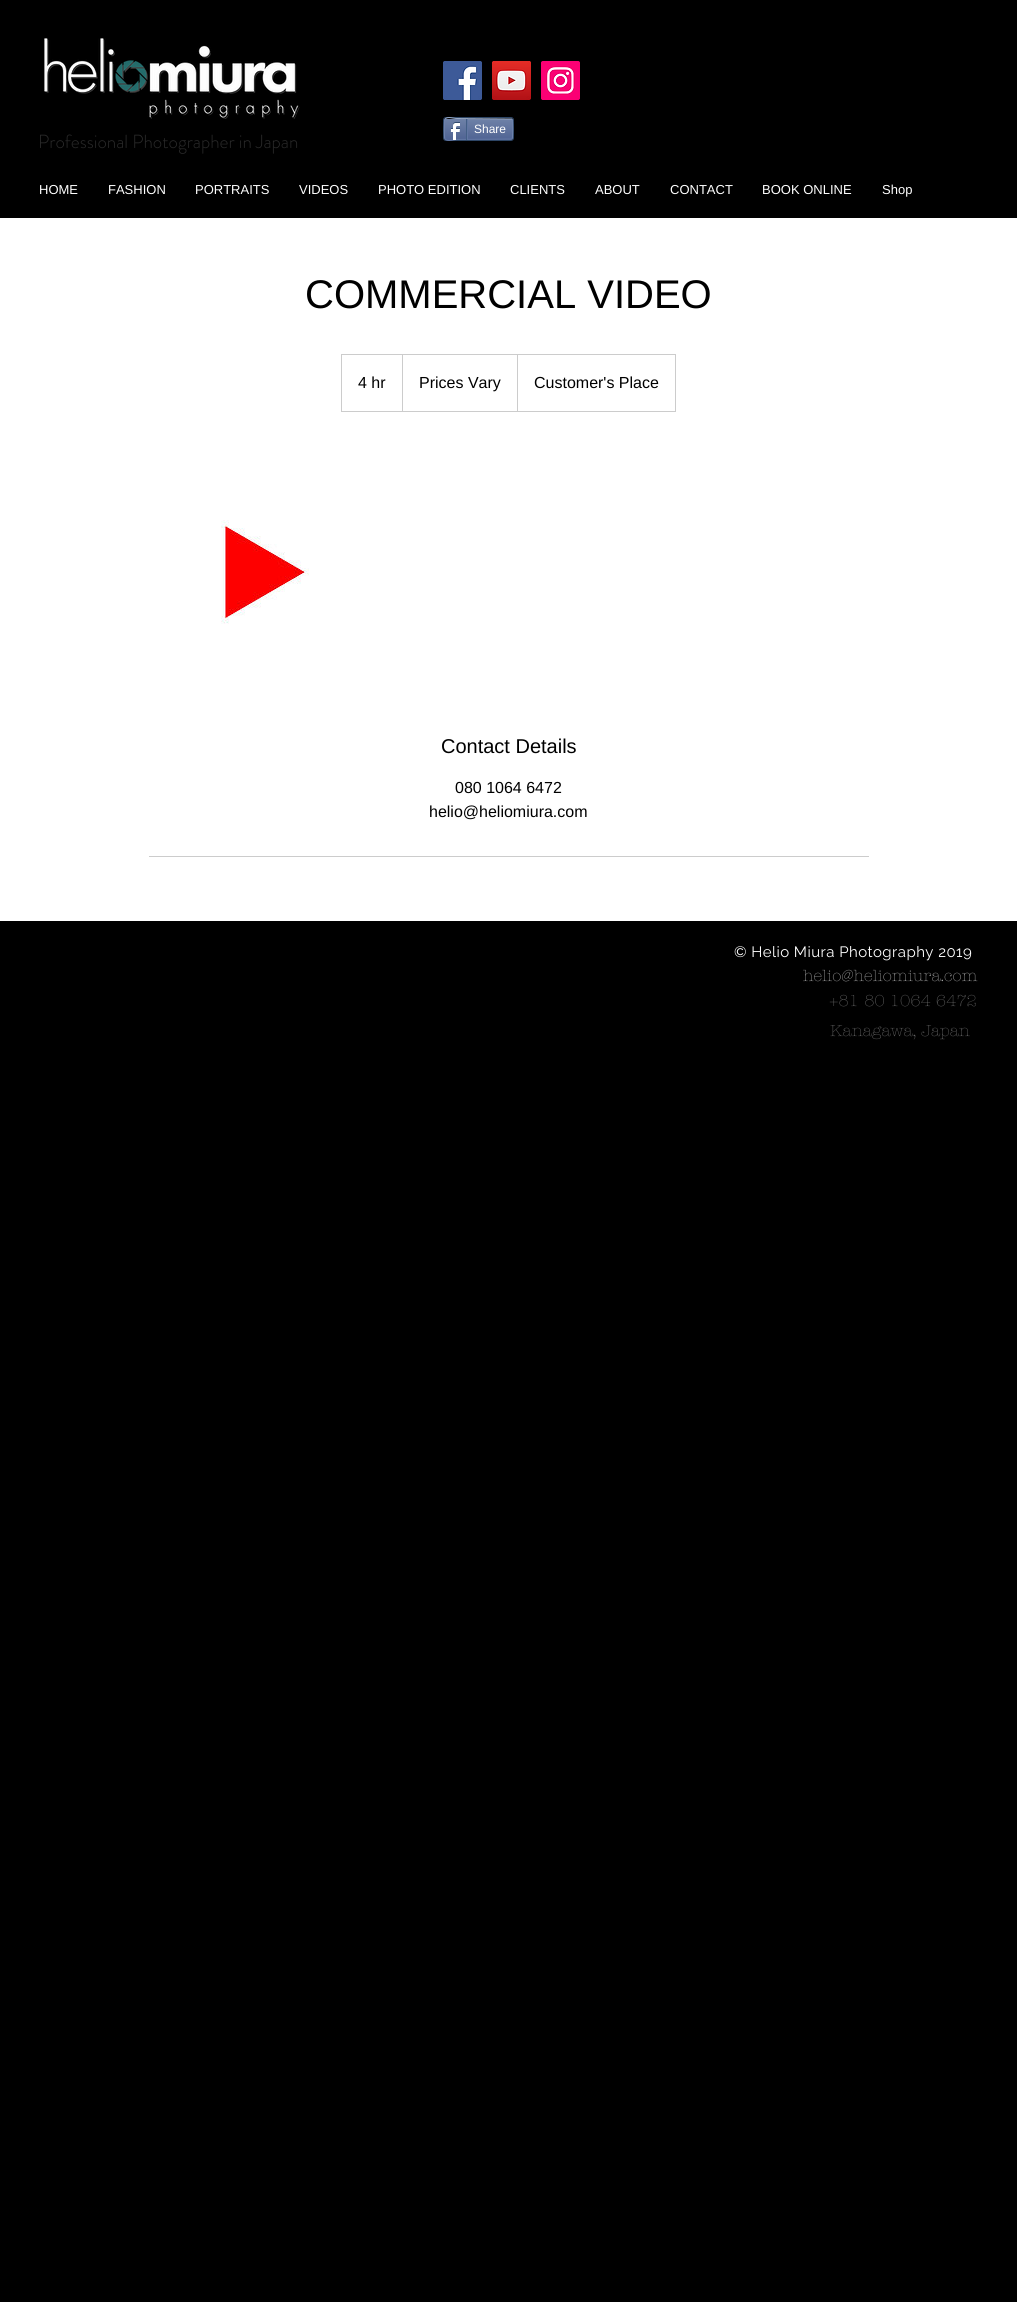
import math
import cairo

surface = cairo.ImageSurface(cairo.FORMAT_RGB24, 1017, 2302)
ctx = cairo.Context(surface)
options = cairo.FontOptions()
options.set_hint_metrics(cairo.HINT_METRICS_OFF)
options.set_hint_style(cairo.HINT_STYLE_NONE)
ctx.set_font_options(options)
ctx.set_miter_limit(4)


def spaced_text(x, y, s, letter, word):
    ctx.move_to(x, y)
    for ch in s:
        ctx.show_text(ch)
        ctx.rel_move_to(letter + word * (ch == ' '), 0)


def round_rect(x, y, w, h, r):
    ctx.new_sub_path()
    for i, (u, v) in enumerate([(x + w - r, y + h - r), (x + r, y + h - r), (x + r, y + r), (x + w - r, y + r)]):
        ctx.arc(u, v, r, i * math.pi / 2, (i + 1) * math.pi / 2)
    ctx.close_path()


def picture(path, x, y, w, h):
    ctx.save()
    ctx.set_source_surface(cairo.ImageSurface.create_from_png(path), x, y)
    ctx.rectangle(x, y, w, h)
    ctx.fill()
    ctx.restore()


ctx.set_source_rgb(0, 0, 0)
ctx.paint()
picture("img1.png", 44, 38, 256, 81)
picture("img2.png", 443, 61, 39, 39)
picture("img3.png", 492, 61, 39, 39)
picture("img4.png", 541, 61, 39, 39)
round_rect(443.5, 117.5, 70, 23, 2.5)
ctx.set_source_rgb(0.176, 0.271, 0.396)
ctx.set_line_width(1)
ctx.stroke()
picture("img5.png", 444, 119, 69, 21)
ctx.new_path()
ctx.move_to(445, 119)
ctx.curve_to(448, 116, 453, 118.5, 457, 118.5)
ctx.line_to(512, 119)
ctx.set_source_rgb(0.604, 0.671, 0.776)
ctx.stroke()
ctx.new_path()
ctx.move_to(512, 119)
ctx.curve_to(513, 119.5, 513, 138.5, 512, 139)
ctx.set_source_rgb(0.435, 0.514, 0.678)
ctx.stroke()
ctx.new_path()
ctx.move_to(512, 139)
ctx.line_to(457, 139.5)
ctx.curve_to(453, 139.5, 448, 142, 445, 139)
ctx.set_source_rgb(0.38, 0.463, 0.639)
ctx.stroke()
ctx.new_path()
ctx.move_to(445, 139)
ctx.curve_to(444, 138.5, 444, 119.5, 445, 119)
ctx.set_source_rgb(0.435, 0.514, 0.678)
ctx.stroke()
picture("img6.png", 450, 122, 10, 18)
ctx.set_source_rgb(0.259, 0.369, 0.522)
ctx.rectangle(466, 119, 1, 21)
ctx.fill()
ctx.select_font_face("Liberation Sans")
ctx.set_font_size(12)
ctx.set_source_rgb(1, 1, 1)
ctx.move_to(474, 133)
ctx.show_text("Share")
ctx.set_source_rgb(0.38, 0.463, 0.639)
ctx.rectangle(467, 119, 1, 20)
ctx.fill()
ctx.select_font_face("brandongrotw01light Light")
ctx.set_font_size(19)
ctx.set_source_rgb(0.161, 0.161, 0.161)
ctx.move_to(38, 148)
ctx.show_text("Professional Photographer in Japan")
ctx.select_font_face("Liberation Sans")
ctx.set_font_size(13)
ctx.set_source_rgb(1, 1, 1)
ctx.move_to(39, 194)
ctx.show_text("HOME")
ctx.move_to(108, 194)
ctx.show_text("FASHION")
ctx.move_to(195, 194)
ctx.show_text("PORTRAITS")
ctx.move_to(299, 194)
ctx.show_text("VIDEOS")
ctx.move_to(378, 194)
ctx.show_text("PHOTO EDITION")
ctx.move_to(510, 194)
ctx.show_text("CLIENTS")
ctx.move_to(595, 194)
ctx.show_text("ABOUT")
ctx.move_to(670, 194)
ctx.show_text("CONTACT")
ctx.move_to(762, 194)
ctx.show_text("BOOK ONLINE")
ctx.move_to(882, 194)
ctx.show_text("Shop")
ctx.rectangle(0, 218, 1017, 703)
ctx.fill()
ctx.set_font_size(40)
ctx.set_source_rgb(0, 0, 0)
ctx.move_to(305, 308)
ctx.show_text("COMMERCIAL VIDEO")
ctx.rectangle(341.5, 354.5, 334, 57)
ctx.set_source_rgb(0.8, 0.8, 0.8)
ctx.stroke()
ctx.set_font_size(16)
ctx.set_source_rgb(0, 0, 0)
ctx.move_to(358, 388)
ctx.show_text("4 hr")
ctx.set_source_rgb(0.8, 0.8, 0.8)
ctx.new_path()
ctx.move_to(402, 411)
ctx.line_to(402, 354)
ctx.line_to(403, 355)
ctx.line_to(403, 411)
ctx.close_path()
ctx.fill()
ctx.set_source_rgb(0, 0, 0)
ctx.move_to(419, 388)
ctx.show_text("Prices Vary")
ctx.set_source_rgb(0.8, 0.8, 0.8)
ctx.new_path()
ctx.move_to(517, 411)
ctx.line_to(517, 354)
ctx.line_to(518, 355)
ctx.line_to(518, 411)
ctx.close_path()
ctx.fill()
ctx.set_source_rgb(0, 0, 0)
ctx.move_to(534, 388)
ctx.show_text("Customer's Place")
picture("img7.png", 221, 520, 88, 104)
ctx.set_font_size(20)
ctx.move_to(441, 753)
ctx.show_text("Contact Details")
ctx.set_font_size(16)
ctx.move_to(455, 793)
ctx.show_text("080 1064 6472")
ctx.move_to(429, 817)
ctx.show_text("helio@heliomiura.com")
ctx.set_source_rgb(0.8, 0.8, 0.8)
ctx.rectangle(149, 856, 720, 1)
ctx.fill()
ctx.select_font_face("Raleway")
ctx.set_font_size(15)
ctx.set_source_rgb(1, 1, 1)
spaced_text(734, 957, "© Helio Miura Photography 2019", 0.45, 0)
ctx.select_font_face("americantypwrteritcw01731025 Light")
ctx.set_font_size(16)
ctx.set_source_rgb(0.647, 0.647, 0.647)
ctx.move_to(803, 981)
ctx.show_text("helio@heliomiura.com")
ctx.set_source_rgb(0.396, 0.396, 0.396)
ctx.move_to(829, 1006)
ctx.show_text("+81 80 1064 6472")
ctx.move_to(830, 1036)
ctx.show_text("Kanagawa, Japan")
surface.write_to_png("page.png")
